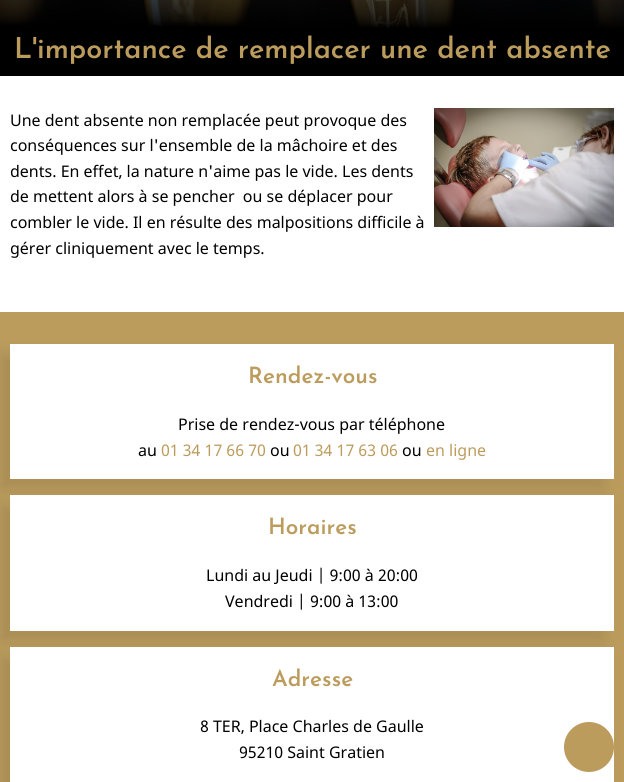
import math
import cairo

surface = cairo.ImageSurface(cairo.FORMAT_RGB24, 624, 782)
ctx = cairo.Context(surface)
options = cairo.FontOptions()
options.set_hint_metrics(cairo.HINT_METRICS_OFF)
options.set_hint_style(cairo.HINT_STYLE_NONE)
ctx.set_font_options(options)
ctx.set_miter_limit(4)


def round_rect(x, y, w, h, r):
    ctx.new_sub_path()
    for i, (u, v) in enumerate([(x + w - r, y + h - r), (x + r, y + h - r), (x + r, y + r), (x + w - r, y + r)]):
        ctx.arc(u, v, r, i * math.pi / 2, (i + 1) * math.pi / 2)
    ctx.close_path()


def shadow(x, y, w, h, r, blur, alpha):
    ctx.push_group_with_content(cairo.CONTENT_ALPHA)
    ctx.set_operator(cairo.OPERATOR_SOURCE)
    for i in range(15, -16, -2):
        e = blur * i / 6
        if min(w, h) + 2 * e > 0:
            ctx.set_source_rgba(0, 0, 0, alpha * math.erfc((i - 1) / 8.5) / 2)
            round_rect(x - e, y - e, w + 2 * e, h + 2 * e, max(0, min(r + e + blur * .6, min(w, h) / 2 + e)))
            ctx.fill()
    ctx.mask(ctx.pop_group())


def picture(path, x, y, w, h):
    ctx.save()
    ctx.set_source_surface(cairo.ImageSurface.create_from_png(path), x, y)
    ctx.rectangle(x, y, w, h)
    ctx.fill()
    ctx.restore()


ctx.set_source_rgb(1, 1, 1)
ctx.paint()
picture("img1.png", 0, 0, 624, 76)
ctx.select_font_face("Josefin Sans Thin")
ctx.set_font_size(28.8)
ctx.set_source_rgb(0.733, 0.612, 0.365)
ctx.move_to(14, 58)
ctx.show_text("L'importance de remplacer une dent absente")
ctx.select_font_face("Noto Sans")
ctx.set_font_size(16)
ctx.set_source_rgb(0, 0, 0)
ctx.move_to(10, 126)
ctx.show_text("Une dent absente non remplacée peut provoque des")
picture("img2.png", 434, 108, 180, 119)
ctx.move_to(10, 151)
ctx.show_text("conséquences sur l'ensemble de la mâchoire et des")
ctx.move_to(10, 177)
ctx.show_text("dents. En effet, la nature n'aime pas le vide. Les dents")
ctx.move_to(10, 202)
ctx.show_text("de mettent alors à se pencher  ou se déplacer pour")
ctx.move_to(10, 228)
ctx.show_text("combler le vide. Il en résulte des malpositions difficile à")
ctx.move_to(10, 254)
ctx.show_text("gérer cliniquement avec le temps.")
ctx.set_source_rgb(0.733, 0.612, 0.365)
ctx.rectangle(0, 312, 624, 470)
ctx.fill()
ctx.set_source_rgb(0, 0, 0)
shadow(0, 354, 604, 135, 0, 8, 0.1)
ctx.set_source_rgb(1, 1, 1)
ctx.rectangle(10, 344, 604, 135)
ctx.fill()
ctx.select_font_face("Josefin Sans Thin")
ctx.set_font_size(22.5)
ctx.set_source_rgb(0.733, 0.612, 0.365)
ctx.move_to(248, 383)
ctx.show_text("Rendez-vous")
ctx.select_font_face("Noto Sans")
ctx.set_font_size(16)
ctx.set_source_rgb(0, 0, 0)
ctx.move_to(178, 430)
ctx.show_text("Prise de rendez-vous par téléphone")
ctx.move_to(138, 456)
ctx.show_text("au")
ctx.set_source_rgb(0.733, 0.612, 0.365)
ctx.move_to(161, 456)
ctx.show_text("01 34 17 66 70")
ctx.set_source_rgb(0, 0, 0)
ctx.move_to(270, 456)
ctx.show_text("ou")
ctx.set_source_rgb(0.733, 0.612, 0.365)
ctx.move_to(293, 456)
ctx.show_text("01 34 17 63 06")
ctx.set_source_rgb(0, 0, 0)
ctx.move_to(402, 456)
ctx.show_text("ou")
ctx.set_source_rgb(0.733, 0.612, 0.365)
ctx.move_to(426, 456)
ctx.show_text("en ligne")
ctx.set_source_rgb(0, 0, 0)
shadow(0, 505, 604, 136, 0, 8, 0.1)
ctx.set_source_rgb(1, 1, 1)
ctx.rectangle(10, 495, 604, 136)
ctx.fill()
ctx.select_font_face("Josefin Sans Thin")
ctx.set_font_size(22.5)
ctx.set_source_rgb(0.733, 0.612, 0.365)
ctx.move_to(268, 534)
ctx.show_text("Horaires")
ctx.select_font_face("Noto Sans")
ctx.set_font_size(16)
ctx.set_source_rgb(0, 0, 0)
ctx.move_to(206, 581)
ctx.show_text("Lundi au Jeudi | 9:00 à 20:00")
ctx.move_to(225, 607)
ctx.show_text("Vendredi | 9:00 à 13:00")
ctx.set_source_rgb(0, 0, 0)
shadow(0, 657, 604, 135, 0, 8, 0.1)
ctx.set_source_rgb(1, 1, 1)
ctx.rectangle(10, 647, 604, 135)
ctx.fill()
ctx.select_font_face("Josefin Sans Thin")
ctx.set_font_size(22.5)
ctx.set_source_rgb(0.733, 0.612, 0.365)
ctx.move_to(272, 686)
ctx.show_text("Adresse")
ctx.select_font_face("Noto Sans")
ctx.set_font_size(16)
ctx.set_source_rgb(0, 0, 0)
ctx.move_to(200, 732)
ctx.show_text("8 TER, Place Charles de Gaulle")
ctx.move_to(239, 758)
ctx.show_text("95210 Saint Gratien")
ctx.set_source_rgb(0.733, 0.612, 0.365)
ctx.new_path()
ctx.arc(589, 747, 25, 0, 2 * math.pi)
ctx.fill()
surface.write_to_png("page.png")
